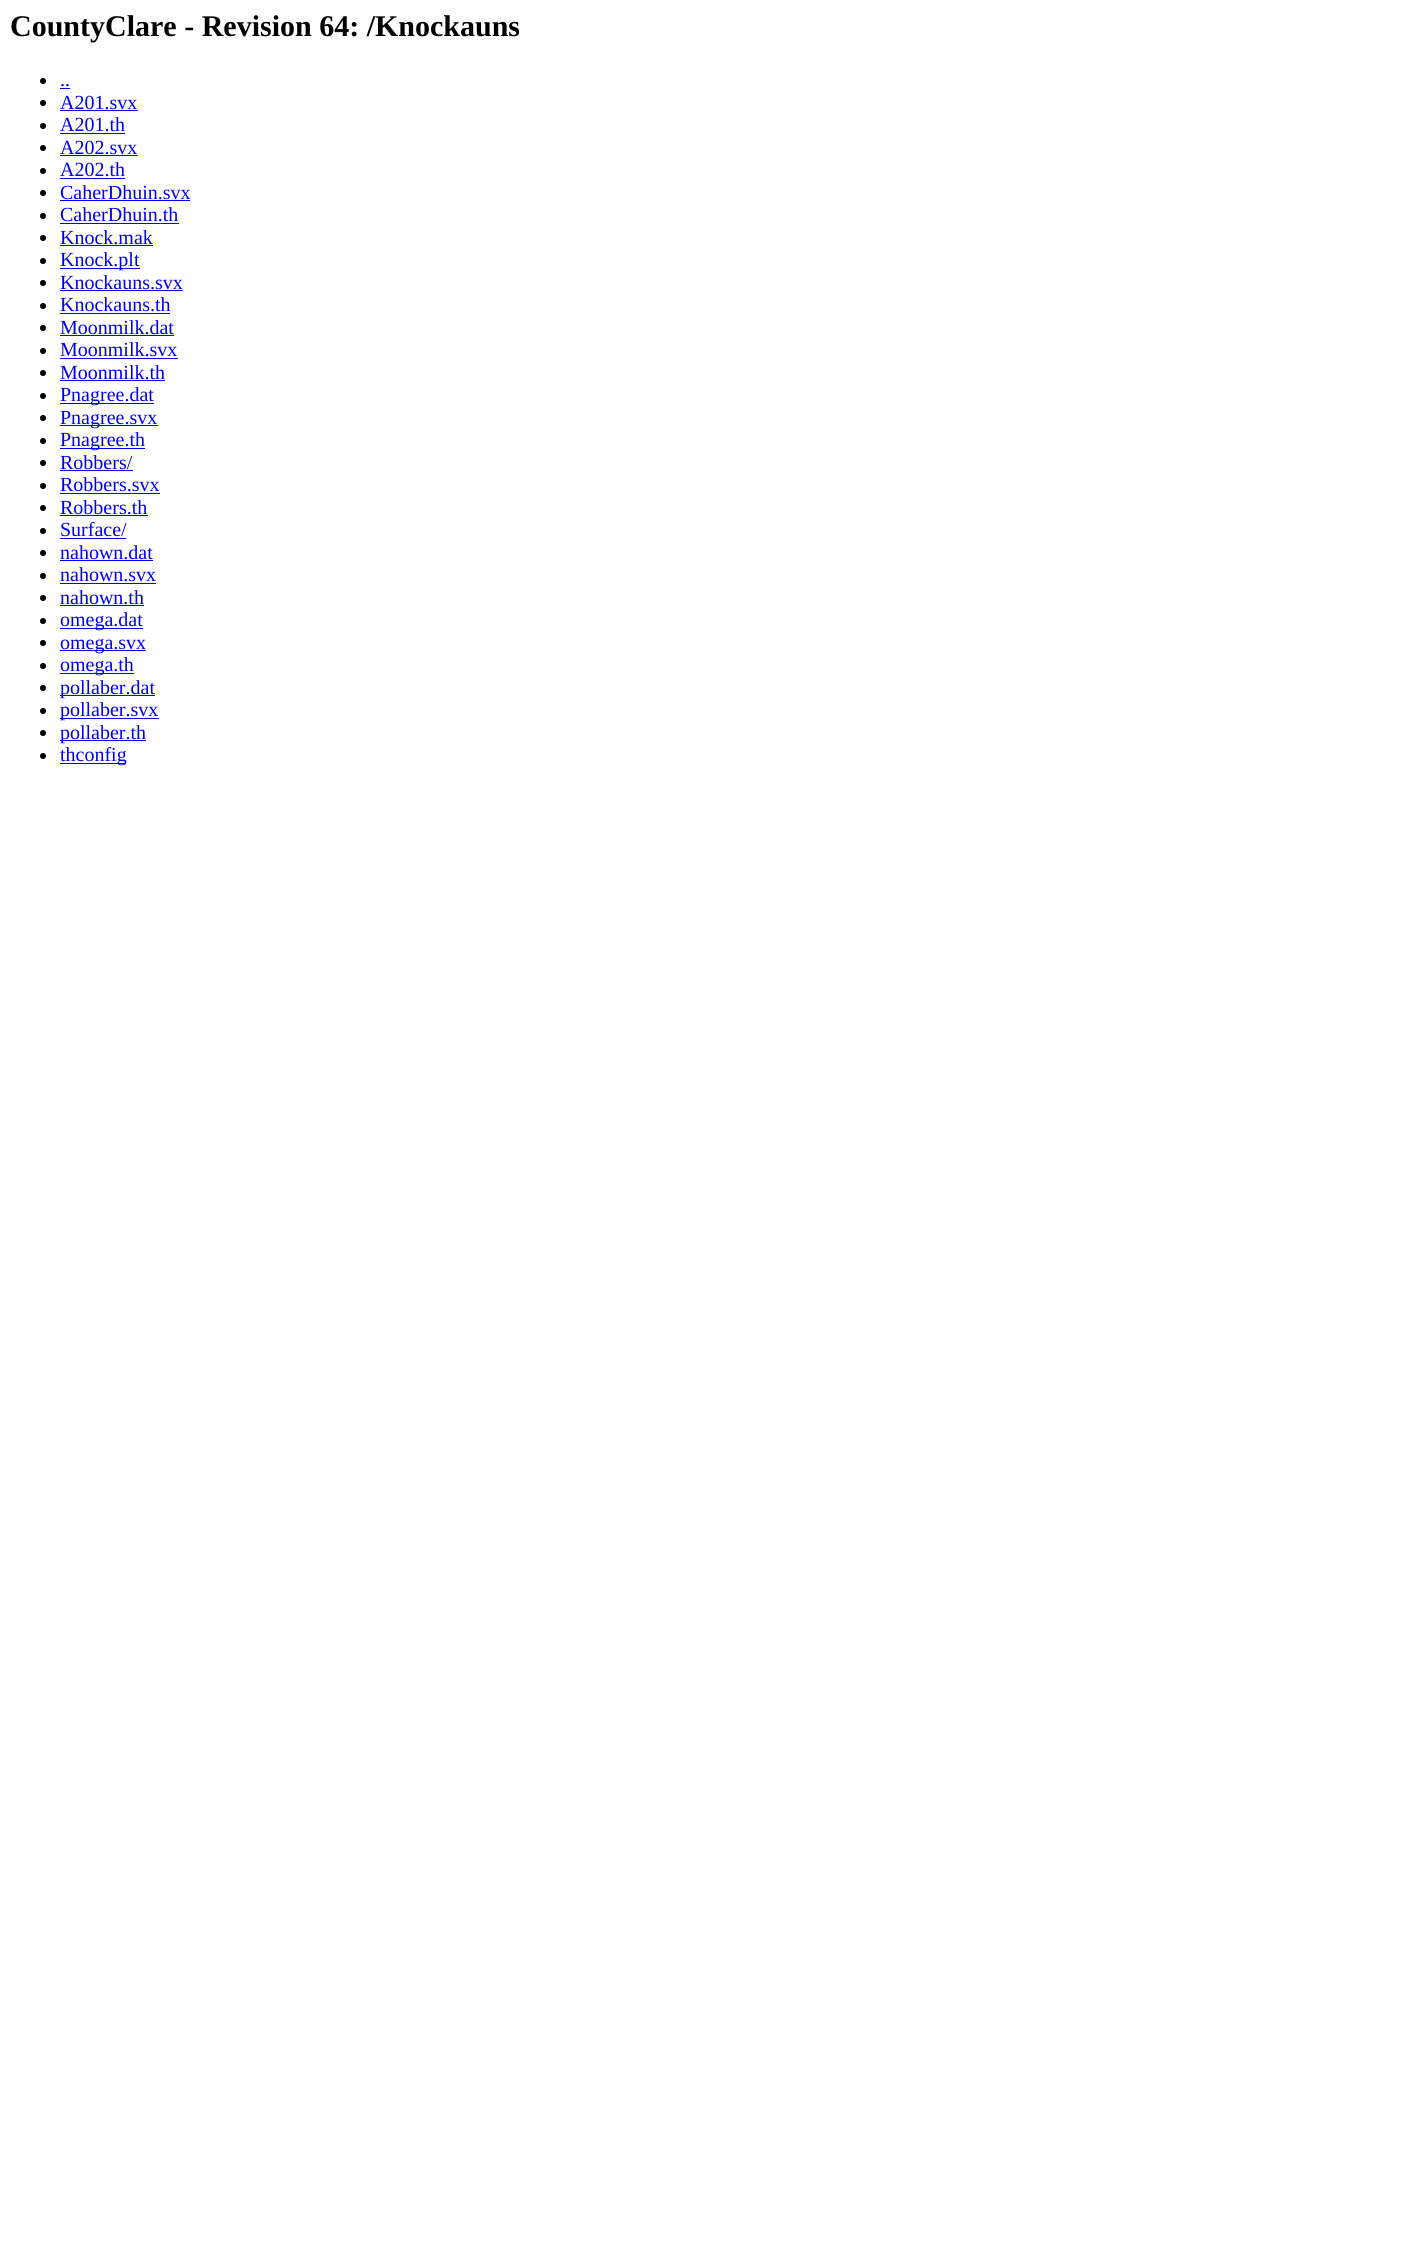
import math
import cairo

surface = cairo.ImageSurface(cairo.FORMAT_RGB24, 1405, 2241)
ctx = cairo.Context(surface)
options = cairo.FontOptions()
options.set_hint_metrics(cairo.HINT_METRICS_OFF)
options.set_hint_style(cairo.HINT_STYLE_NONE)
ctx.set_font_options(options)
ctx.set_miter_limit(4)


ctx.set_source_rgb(1, 1, 1)
ctx.paint()
ctx.select_font_face("Liberation Serif", cairo.FONT_SLANT_NORMAL, cairo.FONT_WEIGHT_BOLD)
ctx.set_font_size(30)
ctx.set_source_rgb(0, 0, 0)
ctx.move_to(10, 36)
ctx.show_text("CountyClare - Revision 64: /Knockauns")
ctx.new_path()
ctx.arc(43, 81, 3, 0, 2 * math.pi)
ctx.fill()
ctx.select_font_face("Liberation Serif")
ctx.set_font_size(20)
ctx.set_source_rgb(0, 0, 0.933)
ctx.move_to(60, 86)
ctx.show_text("..")
ctx.rectangle(60, 88, 10, 1)
ctx.fill()
ctx.set_source_rgb(0, 0, 0)
ctx.arc(43, 103, 3, 0, 2 * math.pi)
ctx.fill()
ctx.set_source_rgb(0, 0, 0.933)
ctx.move_to(60, 109)
ctx.show_text("A201.svx")
ctx.rectangle(60, 110, 78, 1)
ctx.fill()
ctx.set_source_rgb(0, 0, 0)
ctx.arc(43, 126, 3, 0, 2 * math.pi)
ctx.fill()
ctx.set_source_rgb(0, 0, 0.933)
ctx.move_to(60, 131)
ctx.show_text("A201.th")
ctx.rectangle(60, 133, 65, 1)
ctx.fill()
ctx.set_source_rgb(0, 0, 0)
ctx.arc(43, 148, 3, 0, 2 * math.pi)
ctx.fill()
ctx.set_source_rgb(0, 0, 0.933)
ctx.move_to(60, 154)
ctx.show_text("A202.svx")
ctx.rectangle(60, 155, 78, 1)
ctx.fill()
ctx.set_source_rgb(0, 0, 0)
ctx.arc(43, 171, 3, 0, 2 * math.pi)
ctx.fill()
ctx.set_source_rgb(0, 0, 0.933)
ctx.move_to(60, 176)
ctx.show_text("A202.th")
ctx.rectangle(60, 178, 65, 1)
ctx.fill()
ctx.set_source_rgb(0, 0, 0)
ctx.arc(43, 193, 3, 0, 2 * math.pi)
ctx.fill()
ctx.set_source_rgb(0, 0, 0.933)
ctx.move_to(60, 199)
ctx.show_text("CaherDhuin.svx")
ctx.rectangle(60, 200, 130, 1)
ctx.fill()
ctx.set_source_rgb(0, 0, 0)
ctx.arc(43, 216, 3, 0, 2 * math.pi)
ctx.fill()
ctx.set_source_rgb(0, 0, 0.933)
ctx.move_to(60, 221)
ctx.show_text("CaherDhuin.th")
ctx.rectangle(60, 223, 119, 1)
ctx.fill()
ctx.set_source_rgb(0, 0, 0)
ctx.arc(43, 238, 3, 0, 2 * math.pi)
ctx.fill()
ctx.set_source_rgb(0, 0, 0.933)
ctx.move_to(60, 244)
ctx.show_text("Knock.mak")
ctx.rectangle(60, 245, 93, 1)
ctx.fill()
ctx.set_source_rgb(0, 0, 0)
ctx.arc(43, 261, 3, 0, 2 * math.pi)
ctx.fill()
ctx.set_source_rgb(0, 0, 0.933)
ctx.rectangle(60, 268, 80, 1)
ctx.fill()
ctx.move_to(60, 266)
ctx.show_text("Knock.plt")
ctx.set_source_rgb(0, 0, 0)
ctx.new_path()
ctx.arc(43, 283, 3, 0, 2 * math.pi)
ctx.fill()
ctx.set_source_rgb(0, 0, 0.933)
ctx.move_to(60, 289)
ctx.show_text("Knockauns.svx")
ctx.rectangle(60, 290, 123, 1)
ctx.fill()
ctx.set_source_rgb(0, 0, 0)
ctx.arc(43, 306, 3, 0, 2 * math.pi)
ctx.fill()
ctx.set_source_rgb(0, 0, 0.933)
ctx.move_to(60, 311)
ctx.show_text("Knockauns.th")
ctx.rectangle(60, 313, 110, 1)
ctx.fill()
ctx.set_source_rgb(0, 0, 0)
ctx.arc(43, 328, 3, 0, 2 * math.pi)
ctx.fill()
ctx.set_source_rgb(0, 0, 0.933)
ctx.move_to(60, 334)
ctx.show_text("Moonmilk.dat")
ctx.rectangle(60, 335, 114, 1)
ctx.fill()
ctx.set_source_rgb(0, 0, 0)
ctx.arc(43, 351, 3, 0, 2 * math.pi)
ctx.fill()
ctx.set_source_rgb(0, 0, 0.933)
ctx.move_to(60, 356)
ctx.show_text("Moonmilk.svx")
ctx.rectangle(60, 358, 118, 1)
ctx.fill()
ctx.set_source_rgb(0, 0, 0)
ctx.arc(43, 373, 3, 0, 2 * math.pi)
ctx.fill()
ctx.set_source_rgb(0, 0, 0.933)
ctx.move_to(60, 379)
ctx.show_text("Moonmilk.th")
ctx.rectangle(60, 380, 105, 1)
ctx.fill()
ctx.set_source_rgb(0, 0, 0)
ctx.arc(43, 396, 3, 0, 2 * math.pi)
ctx.fill()
ctx.set_source_rgb(0, 0, 0.933)
ctx.rectangle(60, 403, 94, 1)
ctx.fill()
ctx.move_to(60, 401)
ctx.show_text("Pnagree.dat")
ctx.set_source_rgb(0, 0, 0)
ctx.new_path()
ctx.arc(43, 418, 3, 0, 2 * math.pi)
ctx.fill()
ctx.set_source_rgb(0, 0, 0.933)
ctx.rectangle(60, 425, 98, 1)
ctx.fill()
ctx.move_to(60, 424)
ctx.show_text("Pnagree.svx")
ctx.set_source_rgb(0, 0, 0)
ctx.new_path()
ctx.arc(43, 441, 3, 0, 2 * math.pi)
ctx.fill()
ctx.set_source_rgb(0, 0, 0.933)
ctx.rectangle(60, 448, 85, 1)
ctx.fill()
ctx.move_to(60, 446)
ctx.show_text("Pnagree.th")
ctx.set_source_rgb(0, 0, 0)
ctx.new_path()
ctx.arc(43, 463, 3, 0, 2 * math.pi)
ctx.fill()
ctx.set_source_rgb(0, 0, 0.933)
ctx.move_to(60, 469)
ctx.show_text("Robbers/")
ctx.rectangle(60, 470, 73, 1)
ctx.fill()
ctx.set_source_rgb(0, 0, 0)
ctx.arc(43, 486, 3, 0, 2 * math.pi)
ctx.fill()
ctx.set_source_rgb(0, 0, 0.933)
ctx.move_to(60, 491)
ctx.show_text("Robbers.svx")
ctx.rectangle(60, 493, 100, 1)
ctx.fill()
ctx.set_source_rgb(0, 0, 0)
ctx.arc(43, 508, 3, 0, 2 * math.pi)
ctx.fill()
ctx.set_source_rgb(0, 0, 0.933)
ctx.move_to(60, 514)
ctx.show_text("Robbers.th")
ctx.rectangle(60, 515, 88, 1)
ctx.fill()
ctx.set_source_rgb(0, 0, 0)
ctx.arc(43, 531, 3, 0, 2 * math.pi)
ctx.fill()
ctx.set_source_rgb(0, 0, 0.933)
ctx.move_to(60, 536)
ctx.show_text("Surface/")
ctx.rectangle(60, 538, 66, 1)
ctx.fill()
ctx.set_source_rgb(0, 0, 0)
ctx.arc(43, 553, 3, 0, 2 * math.pi)
ctx.fill()
ctx.set_source_rgb(0, 0, 0.933)
ctx.move_to(60, 559)
ctx.show_text("nahown.dat")
ctx.rectangle(60, 560, 93, 1)
ctx.fill()
ctx.set_source_rgb(0, 0, 0)
ctx.arc(43, 576, 3, 0, 2 * math.pi)
ctx.fill()
ctx.set_source_rgb(0, 0, 0.933)
ctx.move_to(60, 581)
ctx.show_text("nahown.svx")
ctx.rectangle(60, 583, 96, 1)
ctx.fill()
ctx.set_source_rgb(0, 0, 0)
ctx.arc(43, 598, 3, 0, 2 * math.pi)
ctx.fill()
ctx.set_source_rgb(0, 0, 0.933)
ctx.move_to(60, 604)
ctx.show_text("nahown.th")
ctx.rectangle(60, 605, 84, 1)
ctx.fill()
ctx.set_source_rgb(0, 0, 0)
ctx.arc(43, 621, 3, 0, 2 * math.pi)
ctx.fill()
ctx.set_source_rgb(0, 0, 0.933)
ctx.rectangle(60, 628, 83, 1)
ctx.fill()
ctx.move_to(60, 626)
ctx.show_text("omega.dat")
ctx.set_source_rgb(0, 0, 0)
ctx.new_path()
ctx.arc(43, 643, 3, 0, 2 * math.pi)
ctx.fill()
ctx.set_source_rgb(0, 0, 0.933)
ctx.rectangle(60, 650, 86, 1)
ctx.fill()
ctx.move_to(60, 649)
ctx.show_text("omega.svx")
ctx.set_source_rgb(0, 0, 0)
ctx.new_path()
ctx.arc(43, 666, 3, 0, 2 * math.pi)
ctx.fill()
ctx.set_source_rgb(0, 0, 0.933)
ctx.rectangle(60, 673, 74, 1)
ctx.fill()
ctx.move_to(60, 671)
ctx.show_text("omega.th")
ctx.set_source_rgb(0, 0, 0)
ctx.new_path()
ctx.arc(43, 688, 3, 0, 2 * math.pi)
ctx.fill()
ctx.set_source_rgb(0, 0, 0.933)
ctx.rectangle(60, 695, 95, 1)
ctx.fill()
ctx.move_to(60, 694)
ctx.show_text("pollaber.dat")
ctx.set_source_rgb(0, 0, 0)
ctx.new_path()
ctx.arc(43, 711, 3, 0, 2 * math.pi)
ctx.fill()
ctx.set_source_rgb(0, 0, 0.933)
ctx.rectangle(60, 718, 99, 1)
ctx.fill()
ctx.move_to(60, 716)
ctx.show_text("pollaber.svx")
ctx.set_source_rgb(0, 0, 0)
ctx.new_path()
ctx.arc(43, 733, 3, 0, 2 * math.pi)
ctx.fill()
ctx.set_source_rgb(0, 0, 0.933)
ctx.rectangle(60, 740, 86, 1)
ctx.fill()
ctx.move_to(60, 739)
ctx.show_text("pollaber.th")
ctx.set_source_rgb(0, 0, 0)
ctx.new_path()
ctx.arc(43, 756, 3, 0, 2 * math.pi)
ctx.fill()
ctx.set_source_rgb(0, 0, 0.933)
ctx.rectangle(60, 763, 66, 1)
ctx.fill()
ctx.move_to(60, 761)
ctx.show_text("thconfig")
surface.write_to_png("page.png")
